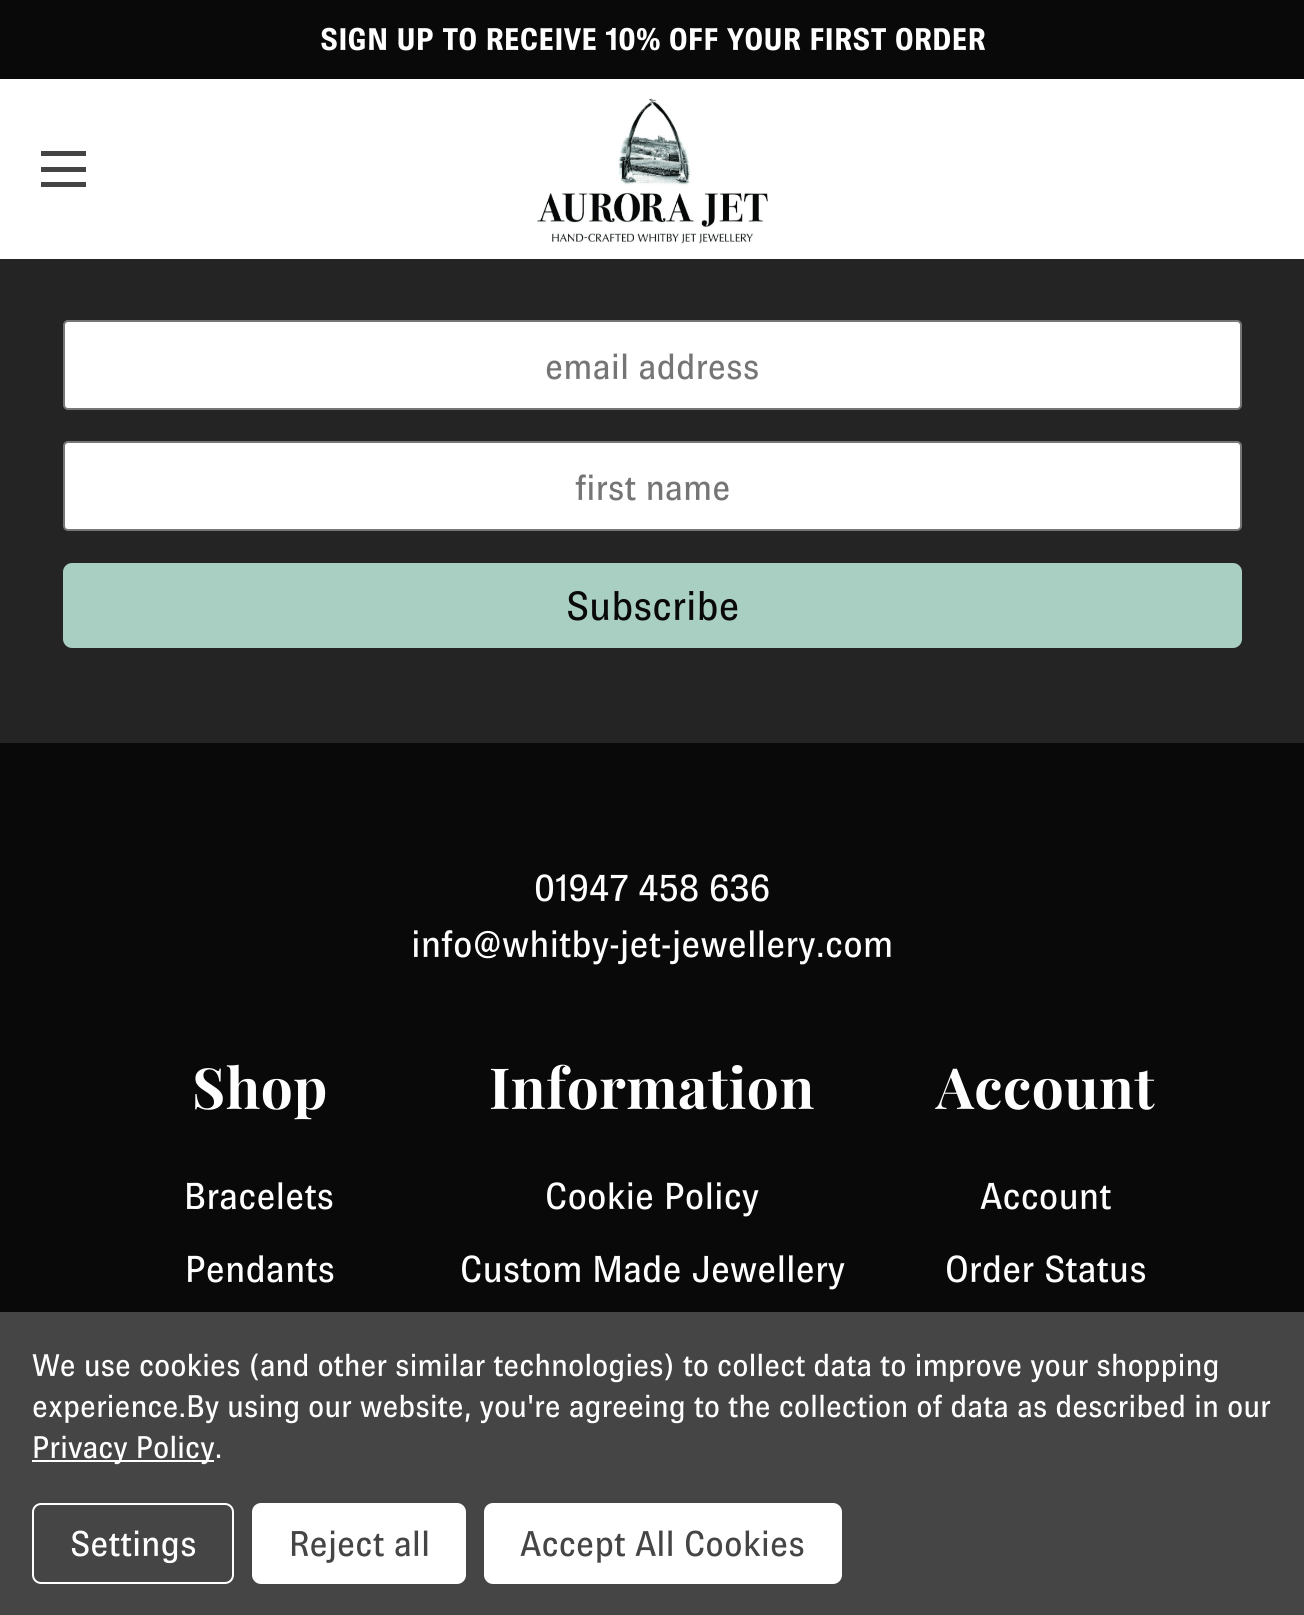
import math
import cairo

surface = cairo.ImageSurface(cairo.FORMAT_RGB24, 1304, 1615)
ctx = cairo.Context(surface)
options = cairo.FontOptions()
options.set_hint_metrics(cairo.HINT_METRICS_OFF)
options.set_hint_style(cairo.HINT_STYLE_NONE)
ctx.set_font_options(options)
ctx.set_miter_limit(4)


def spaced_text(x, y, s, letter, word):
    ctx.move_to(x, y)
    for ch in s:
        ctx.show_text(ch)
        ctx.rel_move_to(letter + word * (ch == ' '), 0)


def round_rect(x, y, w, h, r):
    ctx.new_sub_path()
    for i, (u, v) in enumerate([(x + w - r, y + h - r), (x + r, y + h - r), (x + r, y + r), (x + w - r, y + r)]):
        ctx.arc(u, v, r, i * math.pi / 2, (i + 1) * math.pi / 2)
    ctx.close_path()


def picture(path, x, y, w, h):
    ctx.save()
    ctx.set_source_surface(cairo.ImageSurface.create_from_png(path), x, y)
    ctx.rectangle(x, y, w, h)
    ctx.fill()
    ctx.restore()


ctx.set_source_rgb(0.039, 0.039, 0.039)
ctx.paint()
ctx.set_source_rgb(1, 1, 1)
ctx.rectangle(0, 79, 1304, 180)
ctx.fill()
ctx.select_font_face("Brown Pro", cairo.FONT_SLANT_NORMAL, cairo.FONT_WEIGHT_BOLD)
ctx.set_font_size(31.5)
ctx.move_to(320, 50)
ctx.show_text("SIGN UP TO RECEIVE 10% OFF YOUR FIRST ORDER")
ctx.set_source_rgb(0.267, 0.267, 0.267)
ctx.rectangle(41, 167, 45, 5)
ctx.fill()
ctx.rectangle(41, 151, 45, 5)
ctx.fill()
ctx.rectangle(41, 182, 45, 5)
ctx.fill()
picture("img1.png", 536, 98, 232, 146)
ctx.set_source_rgb(0.141, 0.141, 0.141)
ctx.rectangle(0, 259, 1304, 484)
ctx.fill()
ctx.set_source_rgb(1, 1, 1)
round_rect(64, 321, 1177, 88, 4)
ctx.fill_preserve()
ctx.set_source_rgb(0.463, 0.463, 0.463)
ctx.stroke()
ctx.select_font_face("Brown Pro Medium")
ctx.set_font_size(36)
ctx.set_source_rgb(0.459, 0.459, 0.459)
ctx.move_to(545, 379)
ctx.show_text("email address")
ctx.set_source_rgb(1, 1, 1)
round_rect(64, 442, 1177, 88, 4)
ctx.fill_preserve()
ctx.set_source_rgb(0.463, 0.463, 0.463)
ctx.stroke()
ctx.set_source_rgb(0.459, 0.459, 0.459)
ctx.move_to(575, 500)
ctx.show_text("first name")
ctx.set_source_rgb(0.663, 0.808, 0.761)
round_rect(63, 563, 1179, 85, 9)
ctx.fill()
ctx.set_font_size(41)
ctx.set_source_rgb(0.039, 0.039, 0.039)
ctx.move_to(566, 620)
ctx.show_text("Subscribe")
ctx.set_font_size(37.75)
ctx.set_source_rgb(1, 1, 1)
ctx.move_to(534, 901)
ctx.show_text("01947 458 636")
ctx.move_to(411, 957)
ctx.show_text("info@whitby-jet-jewellery.com")
ctx.select_font_face("Playfair Display", cairo.FONT_SLANT_NORMAL, cairo.FONT_WEIGHT_BOLD)
ctx.set_font_size(56.75)
spaced_text(192, 1109, "Shop", 0.5, 0)
ctx.select_font_face("Brown Pro Medium")
ctx.set_font_size(37.75)
ctx.move_to(184, 1209)
ctx.show_text("Bracelets")
ctx.move_to(185, 1282)
ctx.show_text("Pendants")
ctx.select_font_face("Playfair Display", cairo.FONT_SLANT_NORMAL, cairo.FONT_WEIGHT_BOLD)
ctx.set_font_size(56.75)
spaced_text(489, 1109, "Information", 0.5, 0)
ctx.select_font_face("Brown Pro Medium")
ctx.set_font_size(37.75)
ctx.move_to(545, 1209)
ctx.show_text("Cookie Policy")
ctx.move_to(460, 1282)
ctx.show_text("Custom Made Jewellery")
ctx.select_font_face("Playfair Display", cairo.FONT_SLANT_NORMAL, cairo.FONT_WEIGHT_BOLD)
ctx.set_font_size(56.75)
spaced_text(936, 1109, "Account", 0.5, 0)
ctx.select_font_face("Brown Pro Medium")
ctx.set_font_size(37.75)
ctx.move_to(980, 1209)
ctx.show_text("Account")
ctx.move_to(945, 1282)
ctx.show_text("Order Status")
ctx.set_source_rgb(0.271, 0.271, 0.271)
ctx.rectangle(0, 1312, 1304, 303)
ctx.fill()
ctx.set_font_size(31.5)
ctx.set_source_rgb(1, 1, 1)
spaced_text(32, 1376, "We use cookies (and other similar technologies) to collect data to improve your shopping", -0.1, 0)
spaced_text(32, 1417, "experience.By using our website, you're agreeing to the collection of data as described in our", -0.1, 0)
ctx.rectangle(32, 1460, 182, 2)
ctx.fill()
spaced_text(32, 1458, "Privacy Policy.", -0.1, 0)
round_rect(33, 1504, 200, 79, 8)
ctx.stroke()
ctx.set_font_size(36)
ctx.move_to(70, 1556)
ctx.show_text("Settings")
round_rect(252, 1503, 214, 81, 9)
ctx.fill()
ctx.set_source_rgb(0.271, 0.271, 0.271)
ctx.move_to(289, 1556)
ctx.show_text("Reject all")
ctx.set_source_rgb(1, 1, 1)
round_rect(484, 1503, 358, 81, 9)
ctx.fill()
ctx.set_source_rgb(0.271, 0.271, 0.271)
ctx.move_to(520, 1556)
ctx.show_text("Accept All Cookies")
surface.write_to_png("page.png")
